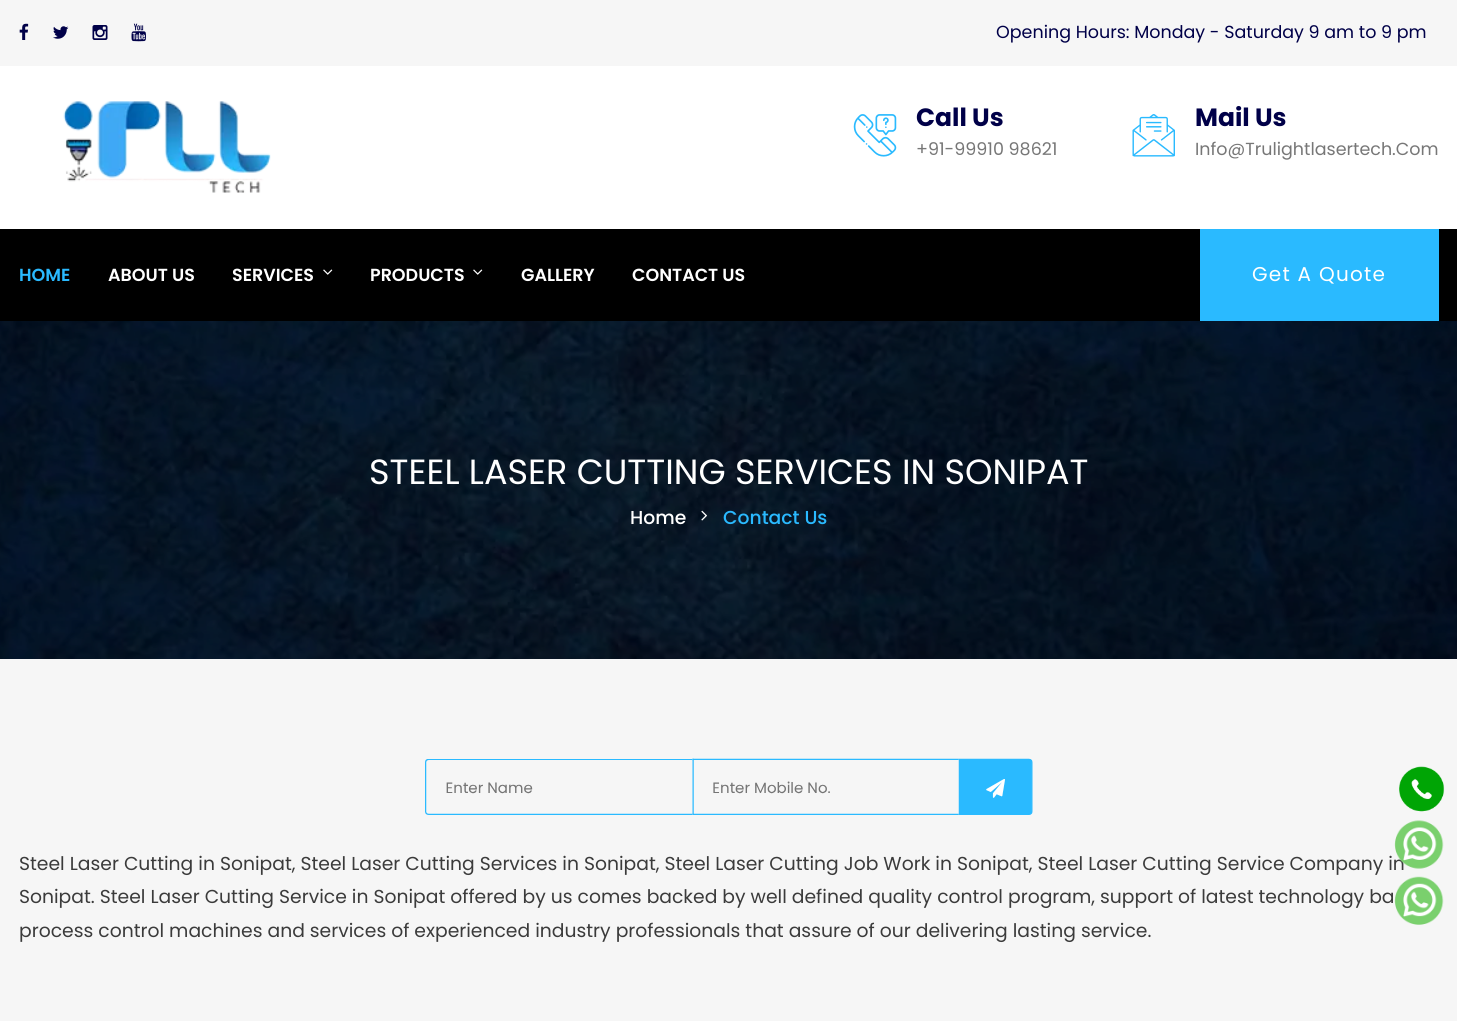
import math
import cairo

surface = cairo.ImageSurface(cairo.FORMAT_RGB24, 1457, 1021)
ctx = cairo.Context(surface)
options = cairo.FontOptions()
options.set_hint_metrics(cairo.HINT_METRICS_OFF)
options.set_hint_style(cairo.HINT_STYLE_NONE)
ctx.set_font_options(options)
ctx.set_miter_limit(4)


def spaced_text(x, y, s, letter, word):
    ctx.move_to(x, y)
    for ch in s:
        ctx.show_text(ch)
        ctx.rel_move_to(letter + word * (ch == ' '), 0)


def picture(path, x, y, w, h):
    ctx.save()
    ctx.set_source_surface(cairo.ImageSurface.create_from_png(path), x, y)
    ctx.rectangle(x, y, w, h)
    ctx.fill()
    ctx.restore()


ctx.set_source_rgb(1, 1, 1)
ctx.paint()
ctx.set_source_rgb(0.961, 0.961, 0.961)
ctx.rectangle(0, 0, 1457, 66)
ctx.fill()
picture("img1.png", 19, 23, 10, 17)
picture("img2.png", 53, 26, 16, 13)
picture("img3.png", 92, 25, 16, 15)
picture("img4.png", 131, 23, 15, 19)
ctx.select_font_face("Poppins")
ctx.set_font_size(17.5)
ctx.set_source_rgb(0, 0, 0.282)
ctx.move_to(996, 38)
ctx.show_text("Opening Hours: Monday - Saturday 9 am to 9 pm")
picture("img5.png", 63, 101, 208, 92)
picture("img6.png", 853, 114, 44, 43)
ctx.select_font_face("Poppins", cairo.FONT_SLANT_NORMAL, cairo.FONT_WEIGHT_BOLD)
ctx.set_font_size(25)
ctx.move_to(916, 126)
ctx.show_text("Call Us")
ctx.select_font_face("Poppins")
ctx.set_font_size(17.5)
ctx.set_source_rgb(0.467, 0.467, 0.467)
ctx.move_to(916, 155)
ctx.show_text("+91-99910 98621")
picture("img7.png", 1132, 114, 43, 43)
ctx.select_font_face("Poppins", cairo.FONT_SLANT_NORMAL, cairo.FONT_WEIGHT_BOLD)
ctx.set_font_size(25)
ctx.set_source_rgb(0, 0, 0.282)
ctx.move_to(1195, 126)
ctx.show_text("Mail Us")
ctx.select_font_face("Poppins")
ctx.set_font_size(17.5)
ctx.set_source_rgb(0.467, 0.467, 0.467)
ctx.move_to(1195, 155)
ctx.show_text("Info@Trulightlasertech.Com")
ctx.set_source_rgb(0, 0, 0)
ctx.rectangle(0, 229, 1457, 92)
ctx.fill()
ctx.select_font_face("Poppins SemiBold")
ctx.set_source_rgb(0.165, 0.729, 1)
ctx.move_to(19, 281)
ctx.show_text("HOME")
ctx.set_source_rgb(1, 1, 1)
ctx.move_to(108, 281)
ctx.show_text("ABOUT US")
ctx.move_to(232, 281)
ctx.show_text("SERVICES")
picture("img8.png", 323, 269, 10, 6)
ctx.move_to(370, 281)
ctx.show_text("PRODUCTS")
picture("img8.png", 473, 269, 10, 6)
ctx.move_to(521, 281)
ctx.show_text("GALLERY")
ctx.move_to(632, 281)
ctx.show_text("CONTACT US")
ctx.set_source_rgb(0.165, 0.729, 1)
ctx.rectangle(1200, 229, 239, 92)
ctx.fill()
ctx.select_font_face("Poppins")
ctx.set_font_size(20)
ctx.set_source_rgb(1, 1, 1)
spaced_text(1252, 281, "Get A Quote", 1.25, 0)
picture("img9.png", 0, 321, 1457, 338)
ctx.set_font_size(35)
ctx.move_to(369, 484)
ctx.show_text("STEEL LASER CUTTING SERVICES IN SONIPAT")
ctx.select_font_face("Poppins Medium")
ctx.set_font_size(18.75)
ctx.move_to(630, 524)
ctx.show_text("Home")
picture("img10.png", 701, 510, 6, 11)
ctx.set_source_rgb(0.165, 0.729, 1)
ctx.move_to(723, 524)
ctx.show_text("Contact Us")
ctx.set_source_rgb(0.961, 0.961, 0.961)
ctx.rectangle(0, 659, 1457, 362)
ctx.fill()
picture("img11.png", 425, 758, 608, 57)
ctx.select_font_face("Poppins")
ctx.set_source_rgb(0.231, 0.231, 0.231)
ctx.move_to(19, 870)
ctx.show_text("Steel Laser Cutting in Sonipat, Steel Laser Cutting Services in Sonipat, Steel Laser Cutting Job Work in Sonipat, Steel Laser Cutting Service Company in")
ctx.move_to(19, 903)
ctx.show_text("Sonipat. Steel Laser Cutting Service in Sonipat offered by us comes backed by well defined quality control program, support of latest technology ba")
ctx.move_to(19, 937)
ctx.show_text("process control machines and services of experienced industry professionals that assure of our delivering lasting service.")
picture("img12.png", 1399, 766, 46, 46)
picture("img13.png", 1394, 820, 50, 49)
picture("img14.png", 1394, 876, 50, 49)
surface.write_to_png("page.png")
